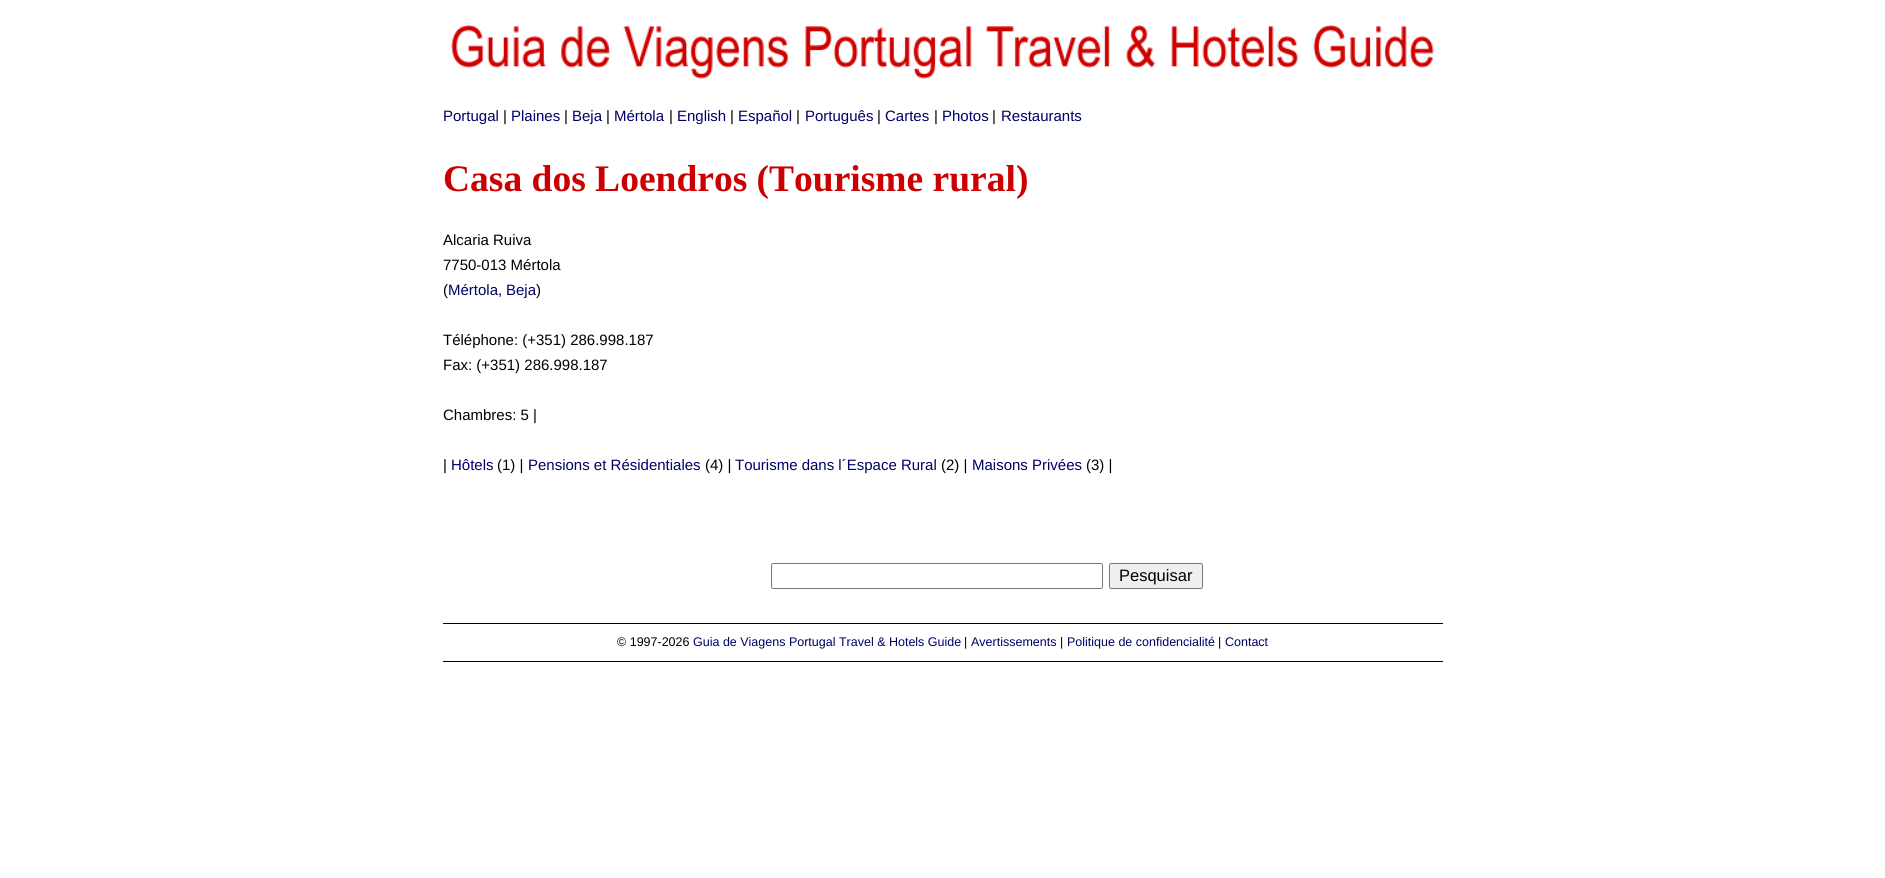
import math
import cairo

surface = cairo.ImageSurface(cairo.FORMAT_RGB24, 1885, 878)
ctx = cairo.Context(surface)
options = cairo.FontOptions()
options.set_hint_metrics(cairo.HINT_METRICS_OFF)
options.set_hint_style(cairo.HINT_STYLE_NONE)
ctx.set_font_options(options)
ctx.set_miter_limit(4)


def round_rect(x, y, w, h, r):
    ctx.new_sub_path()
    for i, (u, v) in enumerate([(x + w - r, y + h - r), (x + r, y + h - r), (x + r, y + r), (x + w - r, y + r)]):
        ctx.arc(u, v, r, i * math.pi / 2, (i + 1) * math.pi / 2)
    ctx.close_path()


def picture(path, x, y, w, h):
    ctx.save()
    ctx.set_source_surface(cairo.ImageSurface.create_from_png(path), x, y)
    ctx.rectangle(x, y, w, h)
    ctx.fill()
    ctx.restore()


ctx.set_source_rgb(1, 1, 1)
ctx.paint()
picture("img1.png", 451, 25, 983, 54)
ctx.select_font_face("Liberation Sans")
ctx.set_font_size(15)
ctx.set_source_rgb(0, 0, 0.4)
ctx.move_to(443, 121)
ctx.show_text("Portugal")
ctx.set_source_rgb(0, 0, 0)
ctx.move_to(503, 121)
ctx.show_text("|")
ctx.set_source_rgb(0, 0, 0.4)
ctx.move_to(511, 121)
ctx.show_text("Plaines")
ctx.set_source_rgb(0, 0, 0)
ctx.move_to(564, 121)
ctx.show_text("|")
ctx.set_source_rgb(0, 0, 0.4)
ctx.move_to(572, 121)
ctx.show_text("Beja")
ctx.set_source_rgb(0, 0, 0)
ctx.move_to(606, 121)
ctx.show_text("|")
ctx.set_source_rgb(0, 0, 0.4)
ctx.move_to(614, 121)
ctx.show_text("Mértola")
ctx.set_source_rgb(0, 0, 0)
ctx.move_to(669, 121)
ctx.show_text("|")
ctx.set_source_rgb(0, 0, 0.4)
ctx.move_to(677, 121)
ctx.show_text("English")
ctx.set_source_rgb(0, 0, 0)
ctx.move_to(730, 121)
ctx.show_text("|")
ctx.set_source_rgb(0, 0, 0.4)
ctx.move_to(738, 121)
ctx.show_text("Español")
ctx.set_source_rgb(0, 0, 0)
ctx.move_to(796, 121)
ctx.show_text("|")
ctx.set_source_rgb(0, 0, 0.4)
ctx.move_to(805, 121)
ctx.show_text("Português")
ctx.set_source_rgb(0, 0, 0)
ctx.move_to(877, 121)
ctx.show_text("|")
ctx.set_source_rgb(0, 0, 0.4)
ctx.move_to(885, 121)
ctx.show_text("Cartes")
ctx.set_source_rgb(0, 0, 0)
ctx.move_to(934, 121)
ctx.show_text("|")
ctx.set_source_rgb(0, 0, 0.4)
ctx.move_to(942, 121)
ctx.show_text("Photos")
ctx.set_source_rgb(0, 0, 0)
ctx.move_to(992, 121)
ctx.show_text("|")
ctx.set_source_rgb(0, 0, 0.4)
ctx.move_to(1001, 121)
ctx.show_text("Restaurants")
ctx.select_font_face("Liberation Serif", cairo.FONT_SLANT_NORMAL, cairo.FONT_WEIGHT_BOLD)
ctx.set_font_size(37.5)
ctx.set_source_rgb(0.8, 0, 0)
ctx.move_to(443, 191)
ctx.show_text("Casa dos Loendros (Tourisme rural)")
ctx.select_font_face("Liberation Sans")
ctx.set_font_size(15)
ctx.set_source_rgb(0, 0, 0)
ctx.move_to(443, 245)
ctx.show_text("Alcaria Ruiva")
ctx.move_to(443, 270)
ctx.show_text("7750-013 Mértola")
ctx.move_to(443, 295)
ctx.show_text("(")
ctx.set_source_rgb(0, 0, 0.4)
ctx.move_to(448, 295)
ctx.show_text("Mértola")
ctx.set_source_rgb(0, 0, 0)
ctx.move_to(498, 295)
ctx.show_text(",")
ctx.set_source_rgb(0, 0, 0.4)
ctx.move_to(506, 295)
ctx.show_text("Beja")
ctx.set_source_rgb(0, 0, 0)
ctx.move_to(536, 295)
ctx.show_text(")")
ctx.move_to(443, 345)
ctx.show_text("Téléphone: (+351) 286.998.187")
ctx.move_to(443, 370)
ctx.show_text("Fax: (+351) 286.998.187")
ctx.move_to(443, 420)
ctx.show_text("Chambres: 5 |")
ctx.move_to(443, 470)
ctx.show_text("|")
ctx.set_source_rgb(0, 0, 0.4)
ctx.move_to(451, 470)
ctx.show_text("Hôtels")
ctx.set_source_rgb(0, 0, 0)
ctx.move_to(497, 470)
ctx.show_text("(1) |")
ctx.set_source_rgb(0, 0, 0.4)
ctx.move_to(528, 470)
ctx.show_text("Pensions et Résidentiales")
ctx.set_source_rgb(0, 0, 0)
ctx.move_to(705, 470)
ctx.show_text("(4) |")
ctx.set_source_rgb(0, 0, 0.4)
ctx.move_to(735, 470)
ctx.show_text("Tourisme dans l´Espace Rural")
ctx.set_source_rgb(0, 0, 0)
ctx.move_to(941, 470)
ctx.show_text("(2) |")
ctx.set_source_rgb(0, 0, 0.4)
ctx.move_to(972, 470)
ctx.show_text("Maisons Privées")
ctx.set_source_rgb(0, 0, 0)
ctx.move_to(1086, 470)
ctx.show_text("(3) |")
round_rect(771.5, 563.5, 331, 25, 2)
ctx.set_source_rgb(0.463, 0.463, 0.463)
ctx.set_line_width(1)
ctx.stroke()
ctx.set_source_rgb(0.937, 0.937, 0.937)
round_rect(1109.5, 563.5, 93, 25, 2)
ctx.fill_preserve()
ctx.set_source_rgb(0.463, 0.463, 0.463)
ctx.stroke()
ctx.set_font_size(16.5)
ctx.set_source_rgb(0, 0, 0)
ctx.move_to(1119, 581)
ctx.show_text("Pesquisar")
ctx.rectangle(443, 623, 1000, 1)
ctx.fill()
ctx.set_font_size(12.5)
ctx.move_to(617, 646)
ctx.show_text("© 1997-2026")
ctx.set_source_rgb(0, 0, 0.4)
ctx.move_to(693, 646)
ctx.show_text("Guia de Viagens Portugal Travel & Hotels Guide")
ctx.set_source_rgb(0, 0, 0)
ctx.move_to(964, 646)
ctx.show_text("|")
ctx.set_source_rgb(0, 0, 0.4)
ctx.move_to(971, 646)
ctx.show_text("Avertissements")
ctx.set_source_rgb(0, 0, 0)
ctx.move_to(1060, 646)
ctx.show_text("|")
ctx.set_source_rgb(0, 0, 0.4)
ctx.move_to(1067, 646)
ctx.show_text("Politique de confidencialité")
ctx.set_source_rgb(0, 0, 0)
ctx.move_to(1218, 646)
ctx.show_text("|")
ctx.set_source_rgb(0, 0, 0.4)
ctx.move_to(1225, 646)
ctx.show_text("Contact")
ctx.set_source_rgb(0, 0, 0)
ctx.rectangle(443, 661, 1000, 1)
ctx.fill()
surface.write_to_png("page.png")
